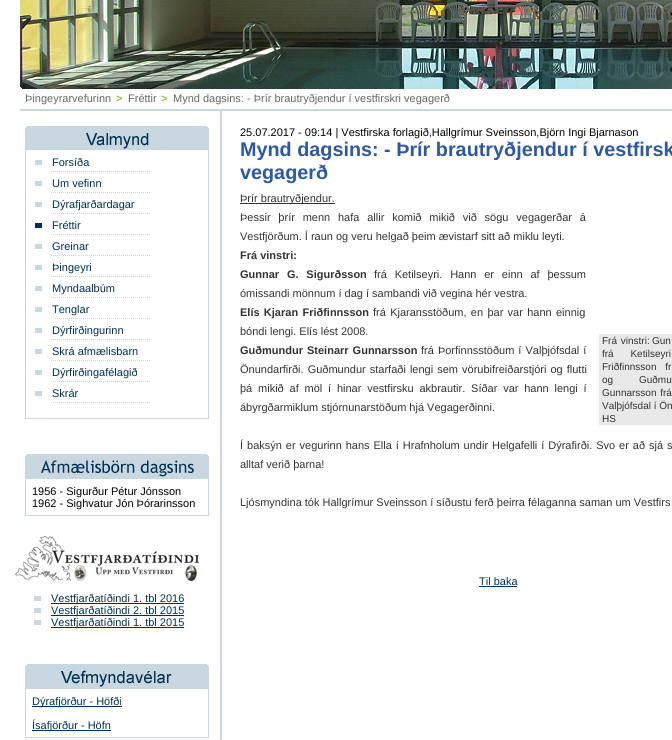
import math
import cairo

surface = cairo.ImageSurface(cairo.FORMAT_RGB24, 672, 740)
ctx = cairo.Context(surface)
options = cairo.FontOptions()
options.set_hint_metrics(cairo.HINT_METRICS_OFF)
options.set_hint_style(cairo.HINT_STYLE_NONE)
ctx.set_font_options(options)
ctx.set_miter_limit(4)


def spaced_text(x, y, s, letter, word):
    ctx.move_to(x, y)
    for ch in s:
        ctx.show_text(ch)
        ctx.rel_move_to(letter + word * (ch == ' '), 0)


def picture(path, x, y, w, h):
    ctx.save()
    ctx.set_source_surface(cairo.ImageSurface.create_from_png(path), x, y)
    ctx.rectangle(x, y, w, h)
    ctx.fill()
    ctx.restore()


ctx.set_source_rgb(1, 1, 1)
ctx.paint()
ctx.set_source_rgb(0.788, 0.847, 0.878)
ctx.rectangle(220, 111, 2, 629)
ctx.fill()
picture("img1.png", 20, 0, 652, 89)
ctx.rectangle(20, 109, 652, 2)
ctx.fill()
ctx.select_font_face("Liberation Sans")
ctx.set_font_size(11)
ctx.set_source_rgb(0.4, 0.4, 0.4)
ctx.move_to(25, 102)
ctx.show_text("Þingeyrarvefurinn")
ctx.select_font_face("Liberation Sans", cairo.FONT_SLANT_NORMAL, cairo.FONT_WEIGHT_BOLD)
ctx.set_source_rgb(0.549, 0.776, 0.247)
ctx.move_to(116, 102)
ctx.show_text(">")
ctx.select_font_face("Liberation Sans")
ctx.set_source_rgb(0.4, 0.4, 0.4)
ctx.move_to(128, 102)
ctx.show_text("Fréttir")
ctx.select_font_face("Liberation Sans", cairo.FONT_SLANT_NORMAL, cairo.FONT_WEIGHT_BOLD)
ctx.set_source_rgb(0.549, 0.776, 0.247)
ctx.move_to(161, 102)
ctx.show_text(">")
ctx.select_font_face("Liberation Sans")
ctx.set_source_rgb(0.4, 0.4, 0.4)
ctx.move_to(173, 102)
ctx.show_text("Mynd dagsins: - Þrír brautryðjendur í vestfirskri vegagerð")
picture("img2.png", 25, 126, 184, 24)
ctx.set_source_rgb(0.788, 0.847, 0.878)
ctx.rectangle(208, 150, 1, 269)
ctx.fill()
ctx.rectangle(25, 418, 184, 1)
ctx.fill()
ctx.rectangle(25, 150, 1, 269)
ctx.fill()
picture("img3.png", 51, 171, 99, 1)
ctx.rectangle(35, 160, 7, 5)
ctx.fill()
ctx.set_source_rgb(0, 0.188, 0.325)
ctx.move_to(52, 166)
ctx.show_text("Forsíða")
picture("img3.png", 51, 192, 99, 1)
ctx.set_source_rgb(0.788, 0.847, 0.878)
ctx.rectangle(35, 181, 7, 5)
ctx.fill()
ctx.set_source_rgb(0, 0.188, 0.325)
ctx.move_to(52, 187)
ctx.show_text("Um vefinn")
picture("img3.png", 51, 213, 99, 1)
ctx.set_source_rgb(0.788, 0.847, 0.878)
ctx.rectangle(35, 202, 7, 5)
ctx.fill()
ctx.set_source_rgb(0, 0.188, 0.325)
ctx.move_to(52, 208)
ctx.show_text("Dýrafjarðardagar")
picture("img3.png", 51, 234, 99, 1)
ctx.rectangle(35, 223, 7, 5)
ctx.fill()
ctx.move_to(52, 229)
ctx.show_text("Fréttir")
picture("img3.png", 51, 255, 99, 1)
ctx.set_source_rgb(0.788, 0.847, 0.878)
ctx.rectangle(35, 244, 7, 5)
ctx.fill()
ctx.set_source_rgb(0, 0.188, 0.325)
ctx.move_to(52, 250)
ctx.show_text("Greinar")
picture("img3.png", 51, 276, 99, 1)
ctx.set_source_rgb(0.788, 0.847, 0.878)
ctx.rectangle(35, 265, 7, 5)
ctx.fill()
ctx.set_source_rgb(0, 0.188, 0.325)
ctx.move_to(52, 271)
ctx.show_text("Þingeyri")
picture("img3.png", 51, 297, 99, 1)
ctx.set_source_rgb(0.788, 0.847, 0.878)
ctx.rectangle(35, 286, 7, 5)
ctx.fill()
ctx.set_source_rgb(0, 0.188, 0.325)
ctx.move_to(52, 292)
ctx.show_text("Myndaalbúm")
picture("img3.png", 51, 318, 99, 1)
ctx.set_source_rgb(0.788, 0.847, 0.878)
ctx.rectangle(35, 307, 7, 5)
ctx.fill()
ctx.set_source_rgb(0, 0.188, 0.325)
ctx.move_to(52, 313)
ctx.show_text("Tenglar")
picture("img3.png", 51, 339, 99, 1)
ctx.set_source_rgb(0.788, 0.847, 0.878)
ctx.rectangle(35, 328, 7, 5)
ctx.fill()
ctx.set_source_rgb(0, 0.188, 0.325)
ctx.move_to(52, 334)
ctx.show_text("Dýrfirðingurinn")
picture("img3.png", 51, 360, 99, 1)
ctx.set_source_rgb(0.788, 0.847, 0.878)
ctx.rectangle(35, 349, 7, 5)
ctx.fill()
ctx.set_source_rgb(0, 0.188, 0.325)
ctx.move_to(52, 355)
ctx.show_text("Skrá afmælisbarn")
picture("img3.png", 51, 381, 99, 1)
ctx.set_source_rgb(0.788, 0.847, 0.878)
ctx.rectangle(35, 370, 7, 5)
ctx.fill()
ctx.set_source_rgb(0, 0.188, 0.325)
ctx.move_to(52, 376)
ctx.show_text("Dýrfirðingafélagið")
picture("img3.png", 51, 402, 99, 1)
ctx.set_source_rgb(0.788, 0.847, 0.878)
ctx.rectangle(35, 391, 7, 5)
ctx.fill()
ctx.set_source_rgb(0, 0.188, 0.325)
ctx.move_to(52, 397)
ctx.show_text("Skrár")
picture("img4.png", 25, 454, 184, 24)
ctx.rectangle(25.5, 478.5, 183, 37)
ctx.set_source_rgb(0.788, 0.847, 0.878)
ctx.set_line_width(1)
ctx.stroke()
ctx.set_source_rgb(0, 0, 0)
ctx.move_to(32, 495)
ctx.show_text("1956 - Sigurður Pétur Jónsson")
ctx.move_to(32, 507)
ctx.show_text("1962 - Sighvatur Jón Þórarinsson")
picture("img5.png", 15, 536, 184, 45)
ctx.set_source_rgb(0, 0.188, 0.325)
ctx.rectangle(51, 603, 133, 1)
ctx.fill()
ctx.move_to(51, 602)
ctx.show_text("Vestfjarðatíðindi 1. tbl 2016")
ctx.set_source_rgb(0.788, 0.847, 0.878)
ctx.rectangle(34, 596, 7, 5)
ctx.fill()
ctx.set_source_rgb(0, 0.188, 0.325)
ctx.rectangle(51, 615, 133, 1)
ctx.fill()
ctx.move_to(51, 614)
ctx.show_text("Vestfjarðatíðindi 2. tbl 2015")
ctx.set_source_rgb(0.788, 0.847, 0.878)
ctx.rectangle(34, 608, 7, 5)
ctx.fill()
ctx.set_source_rgb(0, 0.188, 0.325)
ctx.rectangle(51, 627, 133, 1)
ctx.fill()
ctx.move_to(51, 626)
ctx.show_text("Vestfjarðatíðindi 1. tbl 2015")
ctx.set_source_rgb(0.788, 0.847, 0.878)
ctx.rectangle(34, 620, 7, 5)
ctx.fill()
picture("img6.png", 25, 664, 184, 24)
ctx.rectangle(25.5, 688.5, 183, 49)
ctx.stroke()
ctx.set_source_rgb(0, 0.188, 0.325)
ctx.rectangle(32, 706, 90, 1)
ctx.fill()
ctx.move_to(32, 705)
ctx.show_text("Dýrafjörður - Höfði")
ctx.rectangle(32, 730, 79, 1)
ctx.fill()
ctx.move_to(32, 729)
ctx.show_text("Ísafjörður - Höfn")
ctx.set_source_rgb(0, 0, 0)
ctx.move_to(240, 136)
ctx.show_text("25.07.2017 - 09:14 | Vestfirska forlagið,Hallgrímur Sveinsson,Björn Ingi Bjarnason")
ctx.select_font_face("Liberation Sans", cairo.FONT_SLANT_NORMAL, cairo.FONT_WEIGHT_BOLD)
ctx.set_font_size(19.8)
ctx.set_source_rgb(0.173, 0.345, 0.655)
ctx.move_to(240, 156)
ctx.show_text("Mynd dagsins: - Þrír brautryðjendur í vestfirsk")
ctx.move_to(240, 179)
ctx.show_text("vegagerð")
ctx.set_source_rgb(0.2, 0.2, 0.2)
ctx.rectangle(240, 203, 95, 1)
ctx.fill()
ctx.select_font_face("Liberation Sans")
ctx.set_font_size(11)
ctx.move_to(240, 202)
ctx.show_text("Þrír brautryðjendur.")
spaced_text(240, 221, "Þessir þrír menn hafa allir komið mikið við sögu vegagerðar á", 0, 4.75)
ctx.move_to(240, 240)
ctx.show_text("Vestfjörðum. Í raun og veru helgað þeim ævistarf sitt að miklu leyti.")
ctx.select_font_face("Liberation Sans", cairo.FONT_SLANT_NORMAL, cairo.FONT_WEIGHT_BOLD)
ctx.move_to(240, 259)
ctx.show_text("Frá vinstri:")
spaced_text(240, 278, "Gunnar G. Sigurðsson", 0, 4.75)
ctx.select_font_face("Liberation Sans")
spaced_text(374, 278, "frá Ketilseyri. Hann er einn af þessum", 0, 4.75)
ctx.move_to(240, 297)
ctx.show_text("ómissandi mönnum í dag í sambandi við vegina hér vestra.")
ctx.select_font_face("Liberation Sans", cairo.FONT_SLANT_NORMAL, cairo.FONT_WEIGHT_BOLD)
spaced_text(240, 316, "Elís Kjaran Friðfinnsson", 0, 1.25)
ctx.select_font_face("Liberation Sans")
spaced_text(373, 316, "frá Kjaransstöðum, en þar var hann einnig", 0, 1.25)
ctx.move_to(240, 335)
ctx.show_text("bóndi lengi. Elís lést 2008.")
ctx.select_font_face("Liberation Sans", cairo.FONT_SLANT_NORMAL, cairo.FONT_WEIGHT_BOLD)
spaced_text(240, 354, "Guðmundur Steinarr Gunnarsson", 0, 1)
ctx.select_font_face("Liberation Sans")
spaced_text(421, 354, "frá Þorfinnsstöðum í Valþjófsdal í", 0, 1)
spaced_text(240, 373, "Önundarfirði. Guðmundur starfaði lengi sem vörubifreiðarstjóri og flutti", 0, 1)
spaced_text(240, 392, "þá mikið af möl í hinar vestfirsku akbrautir. Síðar var hann lengi í", 0, 2.75)
ctx.move_to(240, 411)
ctx.show_text("ábyrgðarmiklum stjórnunarstöðum hjá Vegagerðinni.")
ctx.set_source_rgb(0.914, 0.914, 0.914)
ctx.rectangle(599, 334, 73, 91)
ctx.fill()
ctx.set_font_size(10)
ctx.set_source_rgb(0.2, 0.2, 0.2)
spaced_text(602, 344, "Frá vinstri:", 0, 1)
spaced_text(652, 344, "Gun", 0, 1)
spaced_text(602, 357, "frá Ketilseyri", 0, 14)
spaced_text(602, 370, "Friðfinnsson fr", 0, 6)
spaced_text(602, 383, "og Guðmu", 0, 23)
spaced_text(602, 396, "Gunnarsson frá", 0, 1)
ctx.move_to(602, 409)
ctx.show_text("Valþjófsdal í Ön")
ctx.move_to(602, 422)
ctx.show_text("HS")
ctx.set_font_size(11)
spaced_text(240, 449, "Í baksýn er vegurinn hans Ella í Hrafnholum undir Helgafelli í Dýrafirði. Svo er að sjá s", 0, 0.9)
ctx.move_to(240, 468)
ctx.show_text("alltaf verið þarna!")
ctx.move_to(240, 506)
ctx.show_text("Ljósmyndina tók Hallgrímur Sveinsson í síðustu ferð þeirra félaganna saman um Vestfirs")
ctx.set_source_rgb(0, 0.188, 0.325)
ctx.move_to(479, 585)
ctx.show_text("Til baka")
ctx.rectangle(479, 586, 38, 1)
ctx.fill()
surface.write_to_png("page.png")
